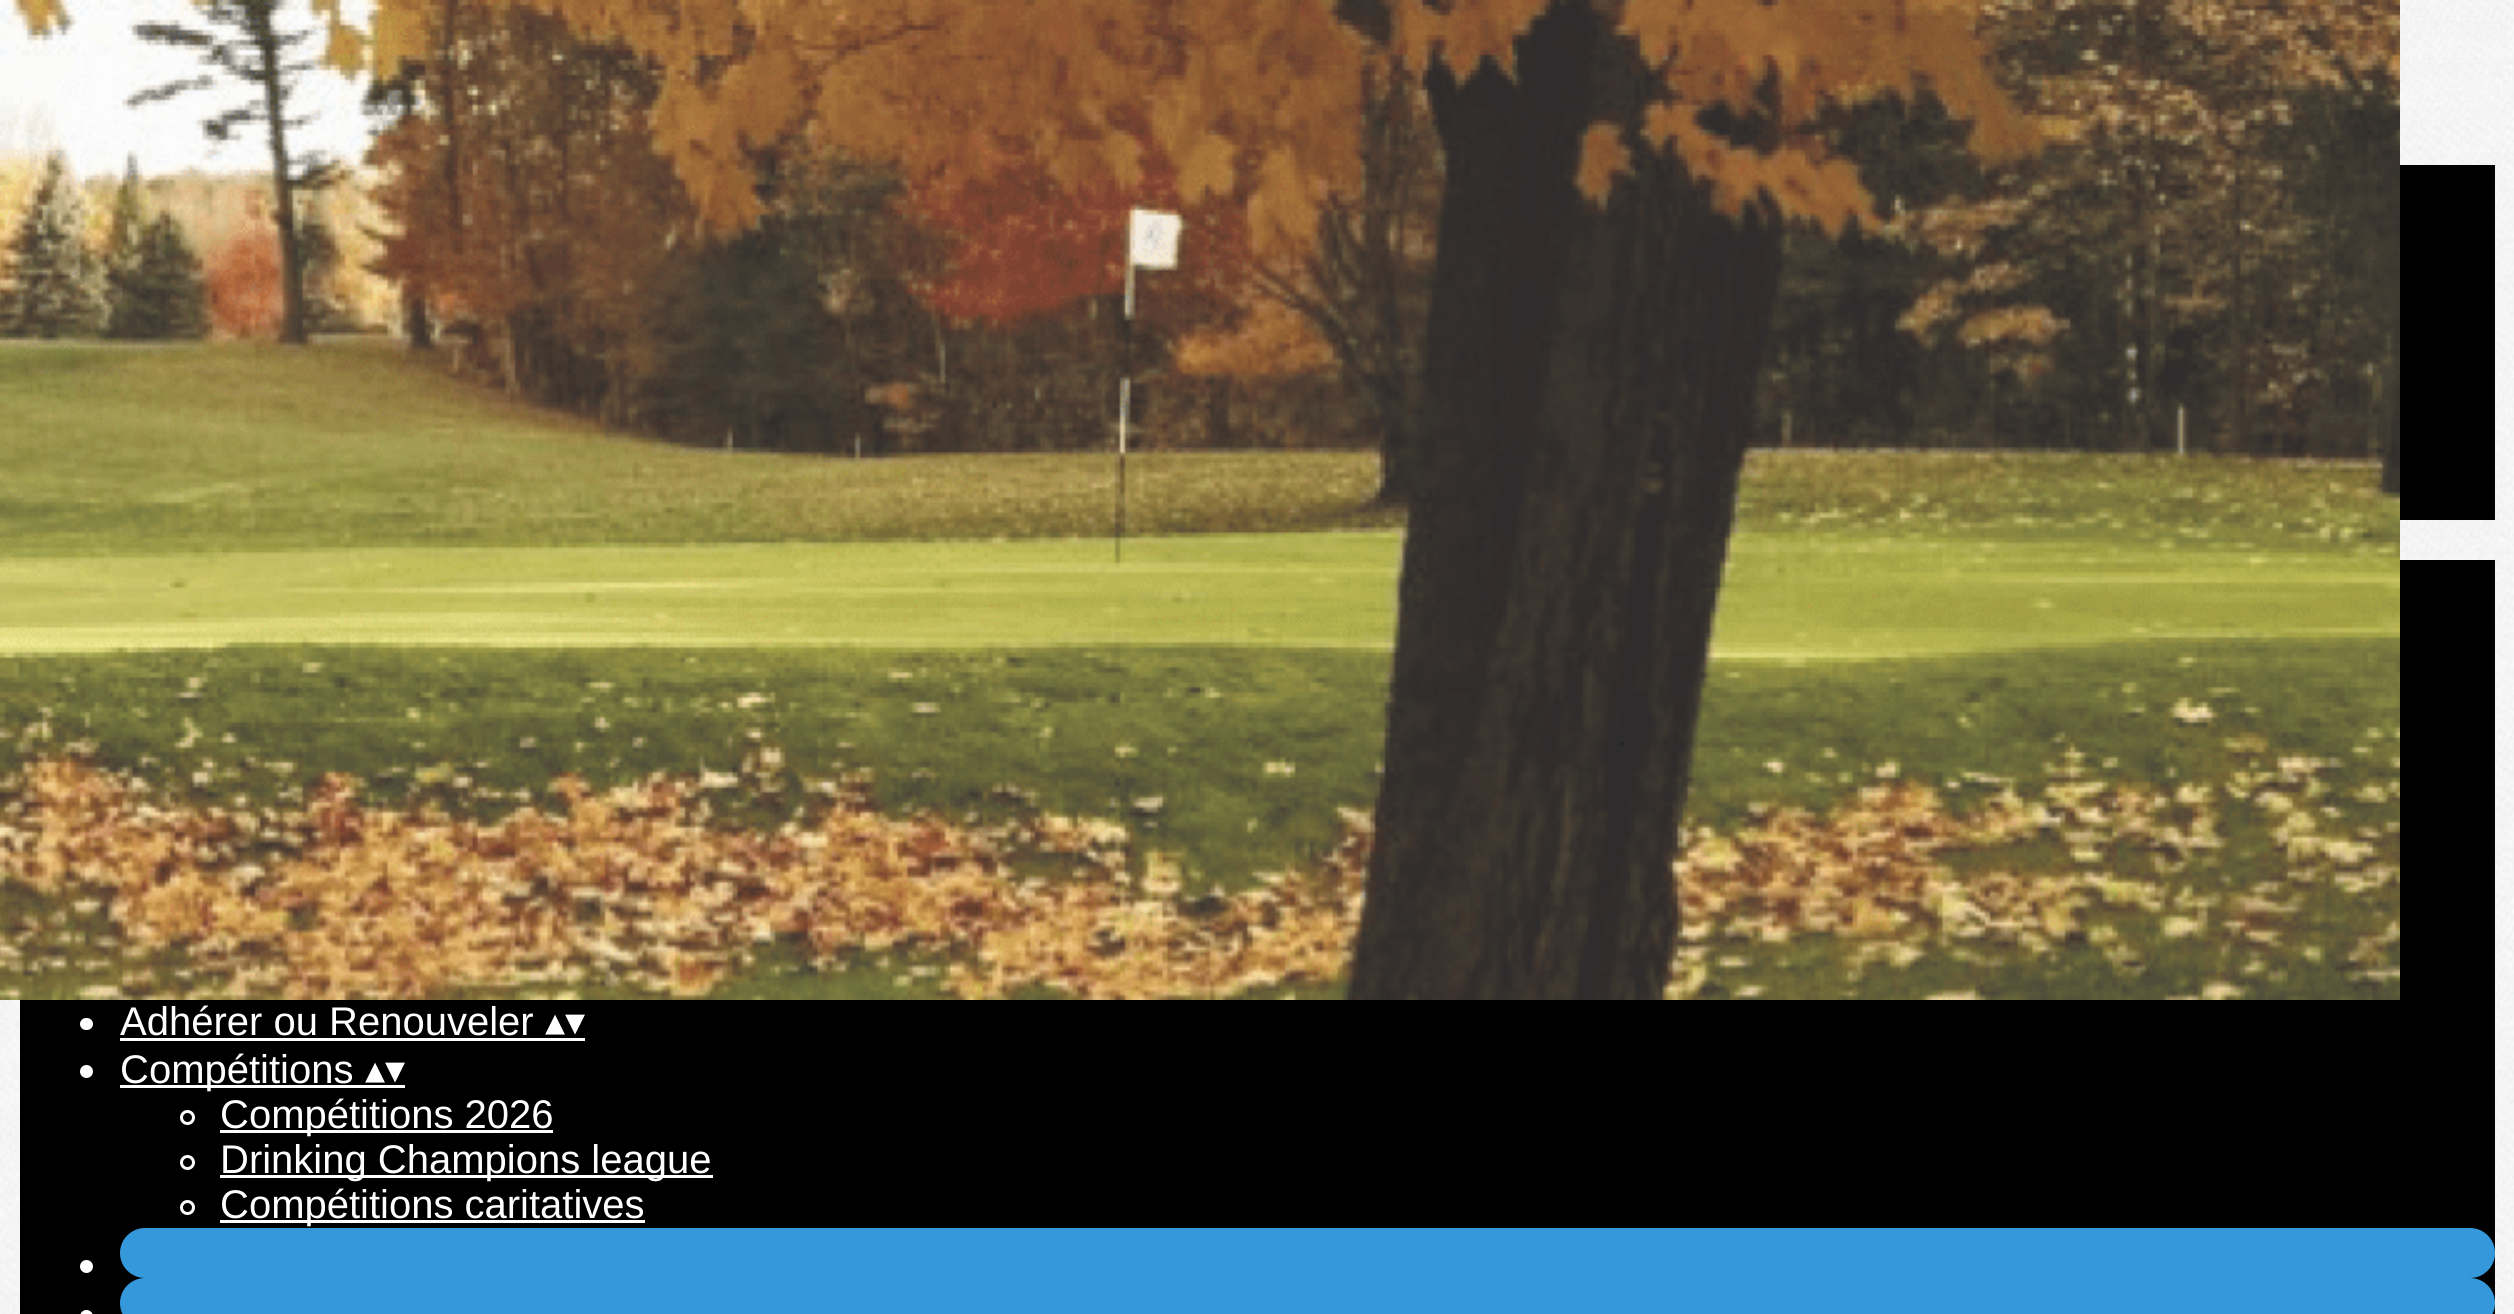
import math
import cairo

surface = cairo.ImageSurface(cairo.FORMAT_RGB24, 2514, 1314)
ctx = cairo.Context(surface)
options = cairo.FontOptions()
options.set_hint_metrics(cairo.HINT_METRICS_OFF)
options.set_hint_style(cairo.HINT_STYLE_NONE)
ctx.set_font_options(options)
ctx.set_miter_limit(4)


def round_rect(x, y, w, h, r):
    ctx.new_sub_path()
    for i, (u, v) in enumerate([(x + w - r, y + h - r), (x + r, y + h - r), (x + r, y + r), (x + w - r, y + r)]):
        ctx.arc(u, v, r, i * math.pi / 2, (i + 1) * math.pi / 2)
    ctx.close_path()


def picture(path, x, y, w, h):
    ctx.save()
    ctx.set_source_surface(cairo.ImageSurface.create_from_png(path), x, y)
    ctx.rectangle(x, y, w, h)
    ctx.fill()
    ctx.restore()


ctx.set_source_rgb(1, 1, 1)
ctx.paint()
picture("img1.png", 0, 0, 2514, 1314)
ctx.set_source_rgb(0, 0, 0)
ctx.rectangle(20, 560, 2475, 754)
ctx.fill()
picture("img2.png", 0, 0, 2400, 1000)
ctx.rectangle(2400, 165, 95, 355)
ctx.fill()
ctx.set_source_rgb(1, 1, 1)
round_rect(80, 1018, 13, 12, 6)
ctx.fill()
ctx.select_font_face("Liberation Sans")
ctx.set_font_size(40)
ctx.move_to(120, 1035)
ctx.show_text("Adhérer ou Renouveler")
ctx.rectangle(120, 1038, 465, 3)
ctx.fill()
ctx.select_font_face("DejaVu Sans")
ctx.move_to(545, 1035)
ctx.show_text("▴▾")
ctx.new_path()
ctx.arc(86.5, 1071.5, 6.5, 0, 2 * math.pi)
ctx.fill()
ctx.rectangle(120, 1085, 285, 3)
ctx.fill()
ctx.select_font_face("Liberation Sans")
ctx.move_to(120, 1083)
ctx.show_text("Compétitions")
ctx.select_font_face("DejaVu Sans")
ctx.move_to(365, 1083)
ctx.show_text("▴▾")
ctx.new_path()
ctx.arc(187.5, 1117.5, 6, 0, 2 * math.pi)
ctx.set_line_width(3)
ctx.stroke()
ctx.rectangle(220, 1130, 333, 3)
ctx.fill()
ctx.select_font_face("Liberation Sans")
ctx.move_to(220, 1128)
ctx.show_text("Compétitions 2026")
ctx.new_path()
ctx.arc(187.5, 1162.5, 6, 0, 2 * math.pi)
ctx.stroke()
ctx.rectangle(220, 1175, 493, 3)
ctx.fill()
ctx.move_to(220, 1173)
ctx.show_text("Drinking Champions league")
ctx.new_path()
ctx.arc(187.5, 1207.5, 6, 0, 2 * math.pi)
ctx.stroke()
ctx.rectangle(220, 1220, 425, 3)
ctx.fill()
ctx.move_to(220, 1218)
ctx.show_text("Compétitions caritatives")
ctx.new_path()
ctx.arc(86.5, 1266.5, 6.5, 0, 2 * math.pi)
ctx.fill()
ctx.set_source_rgb(0.204, 0.596, 0.859)
round_rect(120, 1228, 2375, 50, 25)
ctx.fill()
ctx.set_source_rgb(1, 1, 1)
round_rect(80, 1310, 13, 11, 6.5)
ctx.fill()
ctx.set_source_rgb(0.204, 0.596, 0.859)
round_rect(120, 1278, 2375, 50, 25)
ctx.fill()
surface.write_to_png("page.png")
